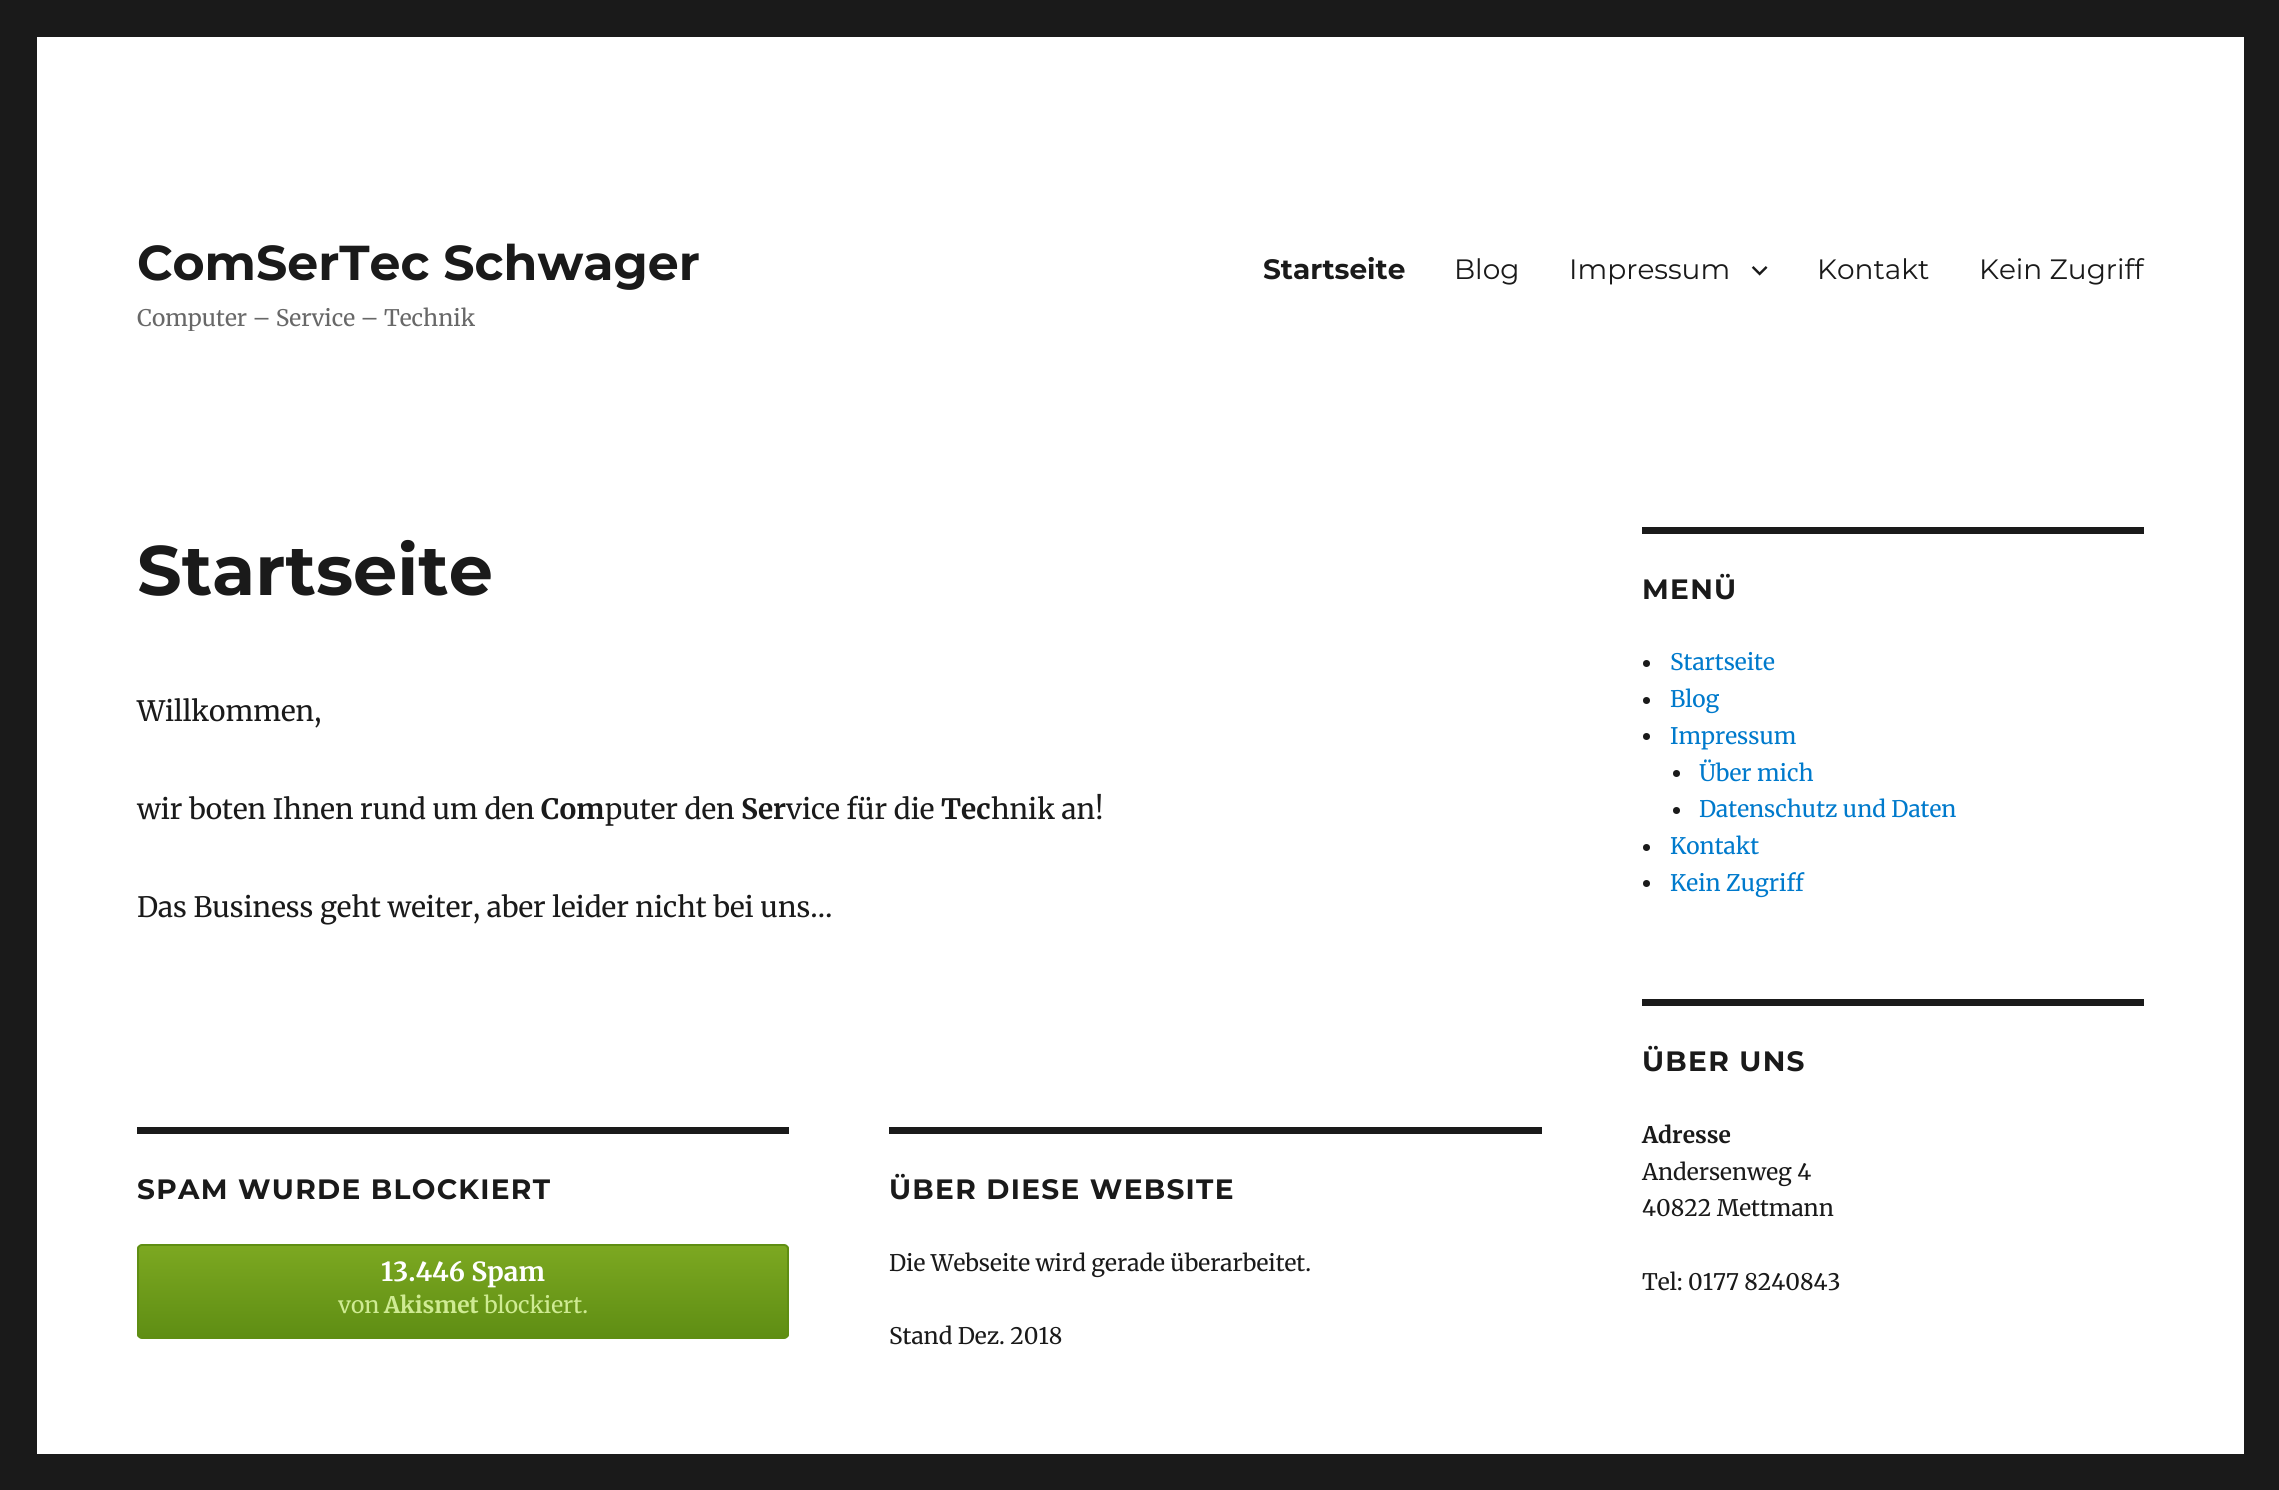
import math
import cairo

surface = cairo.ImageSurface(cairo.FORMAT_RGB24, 2279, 1490)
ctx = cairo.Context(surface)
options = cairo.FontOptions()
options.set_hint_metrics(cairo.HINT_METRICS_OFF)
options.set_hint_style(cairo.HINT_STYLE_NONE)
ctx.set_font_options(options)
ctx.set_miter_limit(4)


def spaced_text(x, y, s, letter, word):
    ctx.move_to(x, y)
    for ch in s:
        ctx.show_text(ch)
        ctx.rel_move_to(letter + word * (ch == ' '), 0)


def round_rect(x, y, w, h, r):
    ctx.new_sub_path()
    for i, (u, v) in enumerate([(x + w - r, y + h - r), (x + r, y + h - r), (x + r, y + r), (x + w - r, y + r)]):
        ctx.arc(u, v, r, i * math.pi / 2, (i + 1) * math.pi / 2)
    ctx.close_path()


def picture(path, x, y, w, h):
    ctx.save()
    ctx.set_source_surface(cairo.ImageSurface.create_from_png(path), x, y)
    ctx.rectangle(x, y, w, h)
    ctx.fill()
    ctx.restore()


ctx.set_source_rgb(0.102, 0.102, 0.102)
ctx.paint()
ctx.set_source_rgb(1, 1, 1)
ctx.rectangle(37, 37, 2207, 1417)
ctx.fill()
ctx.select_font_face("Montserrat", cairo.FONT_SLANT_NORMAL, cairo.FONT_WEIGHT_BOLD)
ctx.set_font_size(49)
ctx.set_source_rgb(0.102, 0.102, 0.102)
ctx.move_to(137, 280)
ctx.show_text("ComSerTec Schwager")
ctx.save()
ctx.rectangle(137, 233, 563, 98)
ctx.clip()
ctx.select_font_face("Merriweather")
ctx.set_font_size(22.75)
ctx.set_source_rgb(0.408, 0.408, 0.408)
ctx.move_to(137, 326)
ctx.show_text("Computer – Service – Technik")
ctx.restore()
ctx.set_font_size(28)
ctx.move_to(1263, 279)
ctx.show_text("Startseite")
ctx.select_font_face("Montserrat")
ctx.move_to(1454, 279)
ctx.show_text("Blog")
ctx.move_to(1569, 279)
ctx.show_text("Impressum")
picture("img1.png", 1751, 266, 17, 10)
ctx.move_to(1817, 279)
ctx.show_text("Kontakt")
ctx.move_to(1979, 279)
ctx.show_text("Kein Zugriff")
ctx.select_font_face("Montserrat", cairo.FONT_SLANT_NORMAL, cairo.FONT_WEIGHT_BOLD)
ctx.set_font_size(70)
ctx.move_to(137, 595)
ctx.show_text("Startseite")
ctx.select_font_face("Merriweather")
ctx.set_font_size(28)
ctx.move_to(137, 721)
ctx.show_text("Willkommen,")
ctx.move_to(137, 819)
ctx.show_text("wir boten Ihnen rund um den")
ctx.select_font_face("Merriweather", cairo.FONT_SLANT_NORMAL, cairo.FONT_WEIGHT_BOLD)
ctx.move_to(541, 819)
ctx.show_text("Com")
ctx.select_font_face("Merriweather")
ctx.move_to(605, 819)
ctx.show_text("puter den")
ctx.select_font_face("Merriweather", cairo.FONT_SLANT_NORMAL, cairo.FONT_WEIGHT_BOLD)
ctx.move_to(741, 819)
ctx.show_text("Ser")
ctx.select_font_face("Merriweather")
ctx.move_to(786, 819)
ctx.show_text("vice für die")
ctx.select_font_face("Merriweather", cairo.FONT_SLANT_NORMAL, cairo.FONT_WEIGHT_BOLD)
ctx.move_to(941, 819)
ctx.show_text("Tec")
ctx.select_font_face("Merriweather")
ctx.move_to(991, 819)
ctx.show_text("hnik an!")
ctx.move_to(137, 917)
ctx.show_text("Das Business geht weiter, aber leider nicht bei uns…")
ctx.rectangle(137, 1127, 652, 7)
ctx.fill()
ctx.select_font_face("Montserrat", cairo.FONT_SLANT_NORMAL, cairo.FONT_WEIGHT_BOLD)
spaced_text(137, 1199, "SPAM WURDE BLOCKIERT", 1.3, 0)
ctx.save()
round_rect(137, 1244, 652, 95, 5)
ctx.clip()
gradient = cairo.LinearGradient(138, 1246, 138, 1337)
gradient.add_color_stop_rgba(0, 0.486, 0.659, 0.129, 1)
gradient.add_color_stop_rgba(1, 0.373, 0.557, 0.078, 1)
ctx.set_source(gradient)
ctx.rectangle(137, 1246, 652, 91)
ctx.fill()
ctx.restore()
round_rect(138, 1245, 650, 93, 4)
ctx.set_source_rgb(0.373, 0.557, 0.078)
ctx.stroke()
ctx.select_font_face("Merriweather", cairo.FONT_SLANT_NORMAL, cairo.FONT_WEIGHT_BOLD)
ctx.set_font_size(26.25)
ctx.set_source_rgb(1, 1, 1)
ctx.move_to(381, 1281)
ctx.show_text("13.446 Spam")
ctx.select_font_face("Merriweather")
ctx.set_font_size(22.75)
ctx.set_source_rgb(0.812, 0.918, 0.576)
ctx.move_to(338, 1313)
ctx.show_text("von")
ctx.select_font_face("Merriweather", cairo.FONT_SLANT_NORMAL, cairo.FONT_WEIGHT_BOLD)
ctx.move_to(384, 1313)
ctx.show_text("Akismet")
ctx.select_font_face("Merriweather")
ctx.move_to(484, 1313)
ctx.show_text("blockiert.")
ctx.set_source_rgb(0.102, 0.102, 0.102)
ctx.rectangle(889, 1127, 653, 7)
ctx.fill()
ctx.select_font_face("Montserrat", cairo.FONT_SLANT_NORMAL, cairo.FONT_WEIGHT_BOLD)
ctx.set_font_size(28)
spaced_text(889, 1199, "ÜBER DIESE WEBSITE", 1.3, 0)
ctx.select_font_face("Merriweather")
ctx.set_font_size(22.75)
ctx.move_to(889, 1271)
ctx.show_text("Die Webseite wird gerade überarbeitet.")
ctx.move_to(889, 1344)
ctx.show_text("Stand Dez. 2018")
ctx.rectangle(1642, 527, 502, 7)
ctx.fill()
ctx.select_font_face("Montserrat", cairo.FONT_SLANT_NORMAL, cairo.FONT_WEIGHT_BOLD)
ctx.set_font_size(28)
spaced_text(1642, 599, "MENÜ", 1.3, 0)
ctx.new_path()
ctx.arc(1646.5, 663.5, 3.5, 0, 2 * math.pi)
ctx.fill()
ctx.select_font_face("Merriweather")
ctx.set_font_size(22.75)
ctx.set_source_rgb(0, 0.478, 0.8)
ctx.move_to(1670, 670)
ctx.show_text("Startseite")
ctx.set_source_rgb(0.102, 0.102, 0.102)
ctx.new_path()
ctx.arc(1646.5, 700.5, 3.5, 0, 2 * math.pi)
ctx.fill()
ctx.set_source_rgb(0, 0.478, 0.8)
ctx.move_to(1670, 707)
ctx.show_text("Blog")
ctx.set_source_rgb(0.102, 0.102, 0.102)
ctx.new_path()
ctx.arc(1646.5, 736.5, 3.5, 0, 2 * math.pi)
ctx.fill()
ctx.set_source_rgb(0, 0.478, 0.8)
ctx.move_to(1670, 744)
ctx.show_text("Impressum")
ctx.set_source_rgb(0.102, 0.102, 0.102)
ctx.new_path()
ctx.arc(1676.5, 773.5, 3.5, 0, 2 * math.pi)
ctx.fill()
ctx.set_source_rgb(0, 0.478, 0.8)
ctx.move_to(1699, 781)
ctx.show_text("Über mich")
ctx.set_source_rgb(0.102, 0.102, 0.102)
ctx.new_path()
ctx.arc(1676.5, 810.5, 3.5, 0, 2 * math.pi)
ctx.fill()
ctx.set_source_rgb(0, 0.478, 0.8)
ctx.move_to(1699, 817)
ctx.show_text("Datenschutz und Daten")
ctx.set_source_rgb(0.102, 0.102, 0.102)
ctx.new_path()
ctx.arc(1646.5, 847.5, 3.5, 0, 2 * math.pi)
ctx.fill()
ctx.set_source_rgb(0, 0.478, 0.8)
ctx.move_to(1670, 854)
ctx.show_text("Kontakt")
ctx.set_source_rgb(0.102, 0.102, 0.102)
ctx.new_path()
ctx.arc(1646.5, 883.5, 3.5, 0, 2 * math.pi)
ctx.fill()
ctx.set_source_rgb(0, 0.478, 0.8)
ctx.move_to(1670, 891)
ctx.show_text("Kein Zugriff")
ctx.set_source_rgb(0.102, 0.102, 0.102)
ctx.rectangle(1642, 999, 502, 7)
ctx.fill()
ctx.select_font_face("Montserrat", cairo.FONT_SLANT_NORMAL, cairo.FONT_WEIGHT_BOLD)
ctx.set_font_size(28)
spaced_text(1642, 1071, "ÜBER UNS", 1.3, 0)
ctx.select_font_face("Merriweather", cairo.FONT_SLANT_NORMAL, cairo.FONT_WEIGHT_BOLD)
ctx.set_font_size(22.75)
ctx.move_to(1642, 1143)
ctx.show_text("Adresse")
ctx.select_font_face("Merriweather")
ctx.move_to(1642, 1180)
ctx.show_text("Andersenweg 4")
ctx.move_to(1642, 1216)
ctx.show_text("40822 Mettmann")
ctx.move_to(1642, 1290)
ctx.show_text("Tel: 0177 8240843")
surface.write_to_png("page.png")
